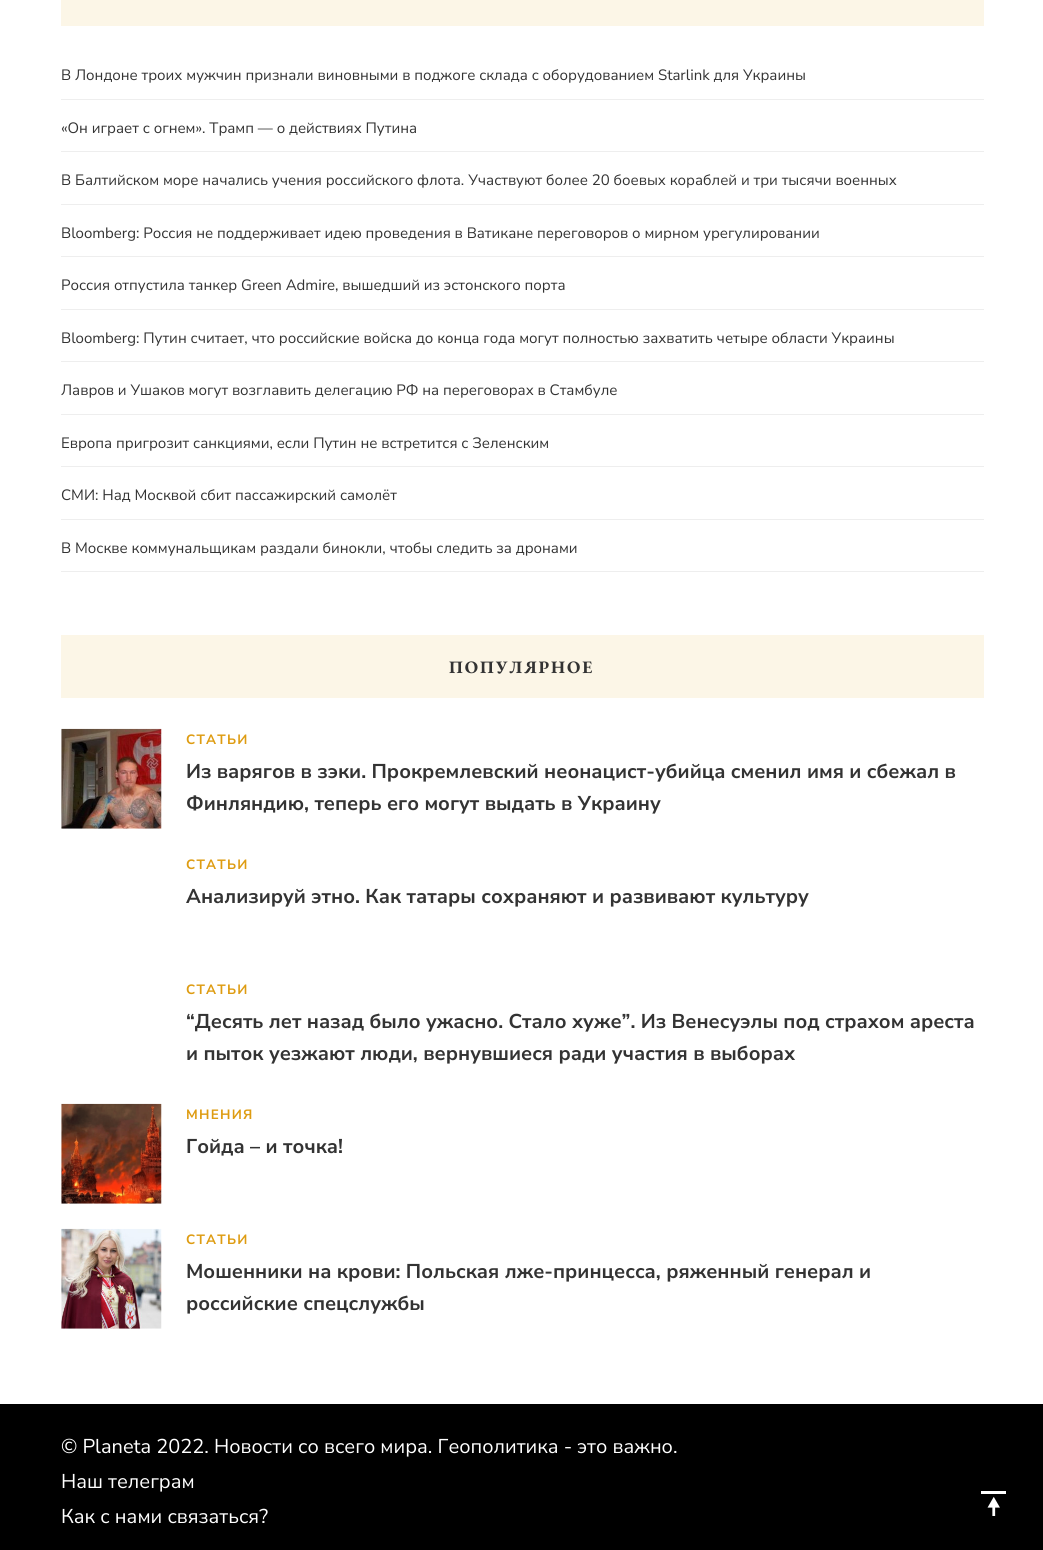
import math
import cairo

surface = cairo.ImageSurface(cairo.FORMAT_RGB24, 1043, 1550)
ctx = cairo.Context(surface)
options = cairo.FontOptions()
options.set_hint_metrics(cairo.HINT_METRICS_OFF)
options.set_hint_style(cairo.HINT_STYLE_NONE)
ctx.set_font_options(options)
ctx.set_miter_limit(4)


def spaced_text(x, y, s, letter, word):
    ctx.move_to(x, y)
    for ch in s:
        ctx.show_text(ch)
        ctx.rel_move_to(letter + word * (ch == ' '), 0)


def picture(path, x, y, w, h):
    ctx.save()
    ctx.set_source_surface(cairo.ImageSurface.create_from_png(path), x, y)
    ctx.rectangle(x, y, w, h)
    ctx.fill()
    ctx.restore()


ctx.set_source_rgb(1, 1, 1)
ctx.paint()
ctx.set_source_rgb(0.988, 0.961, 0.906)
ctx.rectangle(61, 0, 923, 26)
ctx.fill()
ctx.set_source_rgb(0.933, 0.933, 0.933)
ctx.rectangle(61, 99, 923, 1)
ctx.fill()
ctx.select_font_face("Nunito Sans")
ctx.set_font_size(15)
ctx.set_source_rgb(0.2, 0.2, 0.2)
ctx.move_to(61, 80)
ctx.show_text("В Лондоне троих мужчин признали виновными в поджоге склада с оборудованием Starlink для Украины")
ctx.set_source_rgb(0.933, 0.933, 0.933)
ctx.rectangle(61, 151, 923, 1)
ctx.fill()
ctx.set_source_rgb(0.2, 0.2, 0.2)
ctx.move_to(61, 133)
ctx.show_text("«Он играет с огнем». Трамп — о действиях Путина")
ctx.set_source_rgb(0.933, 0.933, 0.933)
ctx.rectangle(61, 204, 923, 1)
ctx.fill()
ctx.set_source_rgb(0.2, 0.2, 0.2)
ctx.move_to(61, 185)
ctx.show_text("В Балтийском море начались учения российского флота. Участвуют более 20 боевых кораблей и три тысячи военных")
ctx.set_source_rgb(0.933, 0.933, 0.933)
ctx.rectangle(61, 256, 923, 1)
ctx.fill()
ctx.set_source_rgb(0.2, 0.2, 0.2)
ctx.move_to(61, 238)
ctx.show_text("Bloomberg: Россия не поддерживает идею проведения в Ватикане переговоров о мирном урегулировании")
ctx.set_source_rgb(0.933, 0.933, 0.933)
ctx.rectangle(61, 309, 923, 1)
ctx.fill()
ctx.set_source_rgb(0.2, 0.2, 0.2)
ctx.move_to(61, 290)
ctx.show_text("Россия отпустила танкер Green Admire, вышедший из эстонского порта")
ctx.set_source_rgb(0.933, 0.933, 0.933)
ctx.rectangle(61, 361, 923, 1)
ctx.fill()
ctx.set_source_rgb(0.2, 0.2, 0.2)
ctx.move_to(61, 343)
ctx.show_text("Bloomberg: Путин считает, что российские войска до конца года могут полностью захватить четыре области Украины")
ctx.set_source_rgb(0.933, 0.933, 0.933)
ctx.rectangle(61, 414, 923, 1)
ctx.fill()
ctx.set_source_rgb(0.2, 0.2, 0.2)
ctx.move_to(61, 395)
ctx.show_text("Лавров и Ушаков могут возглавить делегацию РФ на переговорах в Стамбуле")
ctx.set_source_rgb(0.933, 0.933, 0.933)
ctx.rectangle(61, 466, 923, 1)
ctx.fill()
ctx.set_source_rgb(0.2, 0.2, 0.2)
ctx.move_to(61, 448)
ctx.show_text("Европа пригрозит санкциями, если Путин не встретится с Зеленским")
ctx.set_source_rgb(0.933, 0.933, 0.933)
ctx.rectangle(61, 519, 923, 1)
ctx.fill()
ctx.set_source_rgb(0.2, 0.2, 0.2)
ctx.move_to(61, 500)
ctx.show_text("СМИ: Над Москвой сбит пассажирский самолёт")
ctx.set_source_rgb(0.933, 0.933, 0.933)
ctx.rectangle(61, 571, 923, 1)
ctx.fill()
ctx.set_source_rgb(0.2, 0.2, 0.2)
ctx.move_to(61, 553)
ctx.show_text("В Москве коммунальщикам раздали бинокли, чтобы следить за дронами")
ctx.set_source_rgb(0.988, 0.961, 0.906)
ctx.rectangle(61, 635, 923, 63)
ctx.fill()
ctx.select_font_face("EB Garamond", cairo.FONT_SLANT_NORMAL, cairo.FONT_WEIGHT_BOLD)
ctx.set_font_size(17.5)
ctx.set_source_rgb(0.2, 0.2, 0.2)
spaced_text(449, 673, "ПОПУЛЯРНОЕ", 1.9, 0)
picture("img1.png", 61, 728, 101, 101)
ctx.select_font_face("Nunito Sans", cairo.FONT_SLANT_NORMAL, cairo.FONT_WEIGHT_BOLD)
ctx.set_font_size(13.5)
ctx.set_source_rgb(0.871, 0.612, 0.071)
spaced_text(186, 744, "СТАТЬИ", 1.25, 0)
ctx.set_font_size(20)
ctx.set_source_rgb(0.2, 0.2, 0.2)
ctx.move_to(186, 778)
ctx.show_text("Из варягов в зэки. Прокремлевский неонацист-убийца сменил имя и сбежал в")
ctx.move_to(186, 810)
ctx.show_text("Финляндию, теперь его могут выдать в Украину")
ctx.set_font_size(13.5)
ctx.set_source_rgb(0.871, 0.612, 0.071)
spaced_text(186, 869, "СТАТЬИ", 1.25, 0)
ctx.set_font_size(20)
ctx.set_source_rgb(0.2, 0.2, 0.2)
ctx.move_to(186, 903)
ctx.show_text("Анализируй этно. Как татары сохраняют и развивают культуру")
ctx.set_font_size(13.5)
ctx.set_source_rgb(0.871, 0.612, 0.071)
spaced_text(186, 994, "СТАТЬИ", 1.25, 0)
ctx.set_font_size(20)
ctx.set_source_rgb(0.2, 0.2, 0.2)
ctx.move_to(186, 1028)
ctx.show_text("“Десять лет назад было ужасно. Стало хуже”. Из Венесуэлы под страхом ареста")
ctx.move_to(186, 1060)
ctx.show_text("и пыток уезжают люди, вернувшиеся ради участия в выборах")
picture("img2.png", 61, 1103, 101, 101)
ctx.set_font_size(13.5)
ctx.set_source_rgb(0.871, 0.612, 0.071)
spaced_text(186, 1119, "МНЕНИЯ", 1.25, 0)
ctx.set_font_size(20)
ctx.set_source_rgb(0.2, 0.2, 0.2)
ctx.move_to(186, 1153)
ctx.show_text("Гойда – и точка!")
picture("img3.png", 61, 1228, 101, 101)
ctx.set_font_size(13.5)
ctx.set_source_rgb(0.871, 0.612, 0.071)
spaced_text(186, 1244, "СТАТЬИ", 1.25, 0)
ctx.set_font_size(20)
ctx.set_source_rgb(0.2, 0.2, 0.2)
ctx.move_to(186, 1278)
ctx.show_text("Мошенники на крови: Польская лже-принцесса, ряженный генерал и")
ctx.move_to(186, 1310)
ctx.show_text("российские спецслужбы")
ctx.set_source_rgb(0, 0, 0)
ctx.rectangle(0, 1404, 1043, 146)
ctx.fill()
ctx.select_font_face("Nunito Sans")
ctx.set_source_rgb(1, 1, 1)
ctx.move_to(61, 1453)
ctx.show_text("© Planeta 2022. Новости со всего мира. Геополитика - это важно.")
ctx.move_to(61, 1488)
ctx.show_text("Наш телеграм")
ctx.move_to(61, 1523)
ctx.show_text("Как с нами связаться?")
picture("img4.png", 981, 1491, 25, 25)
surface.write_to_png("page.png")
